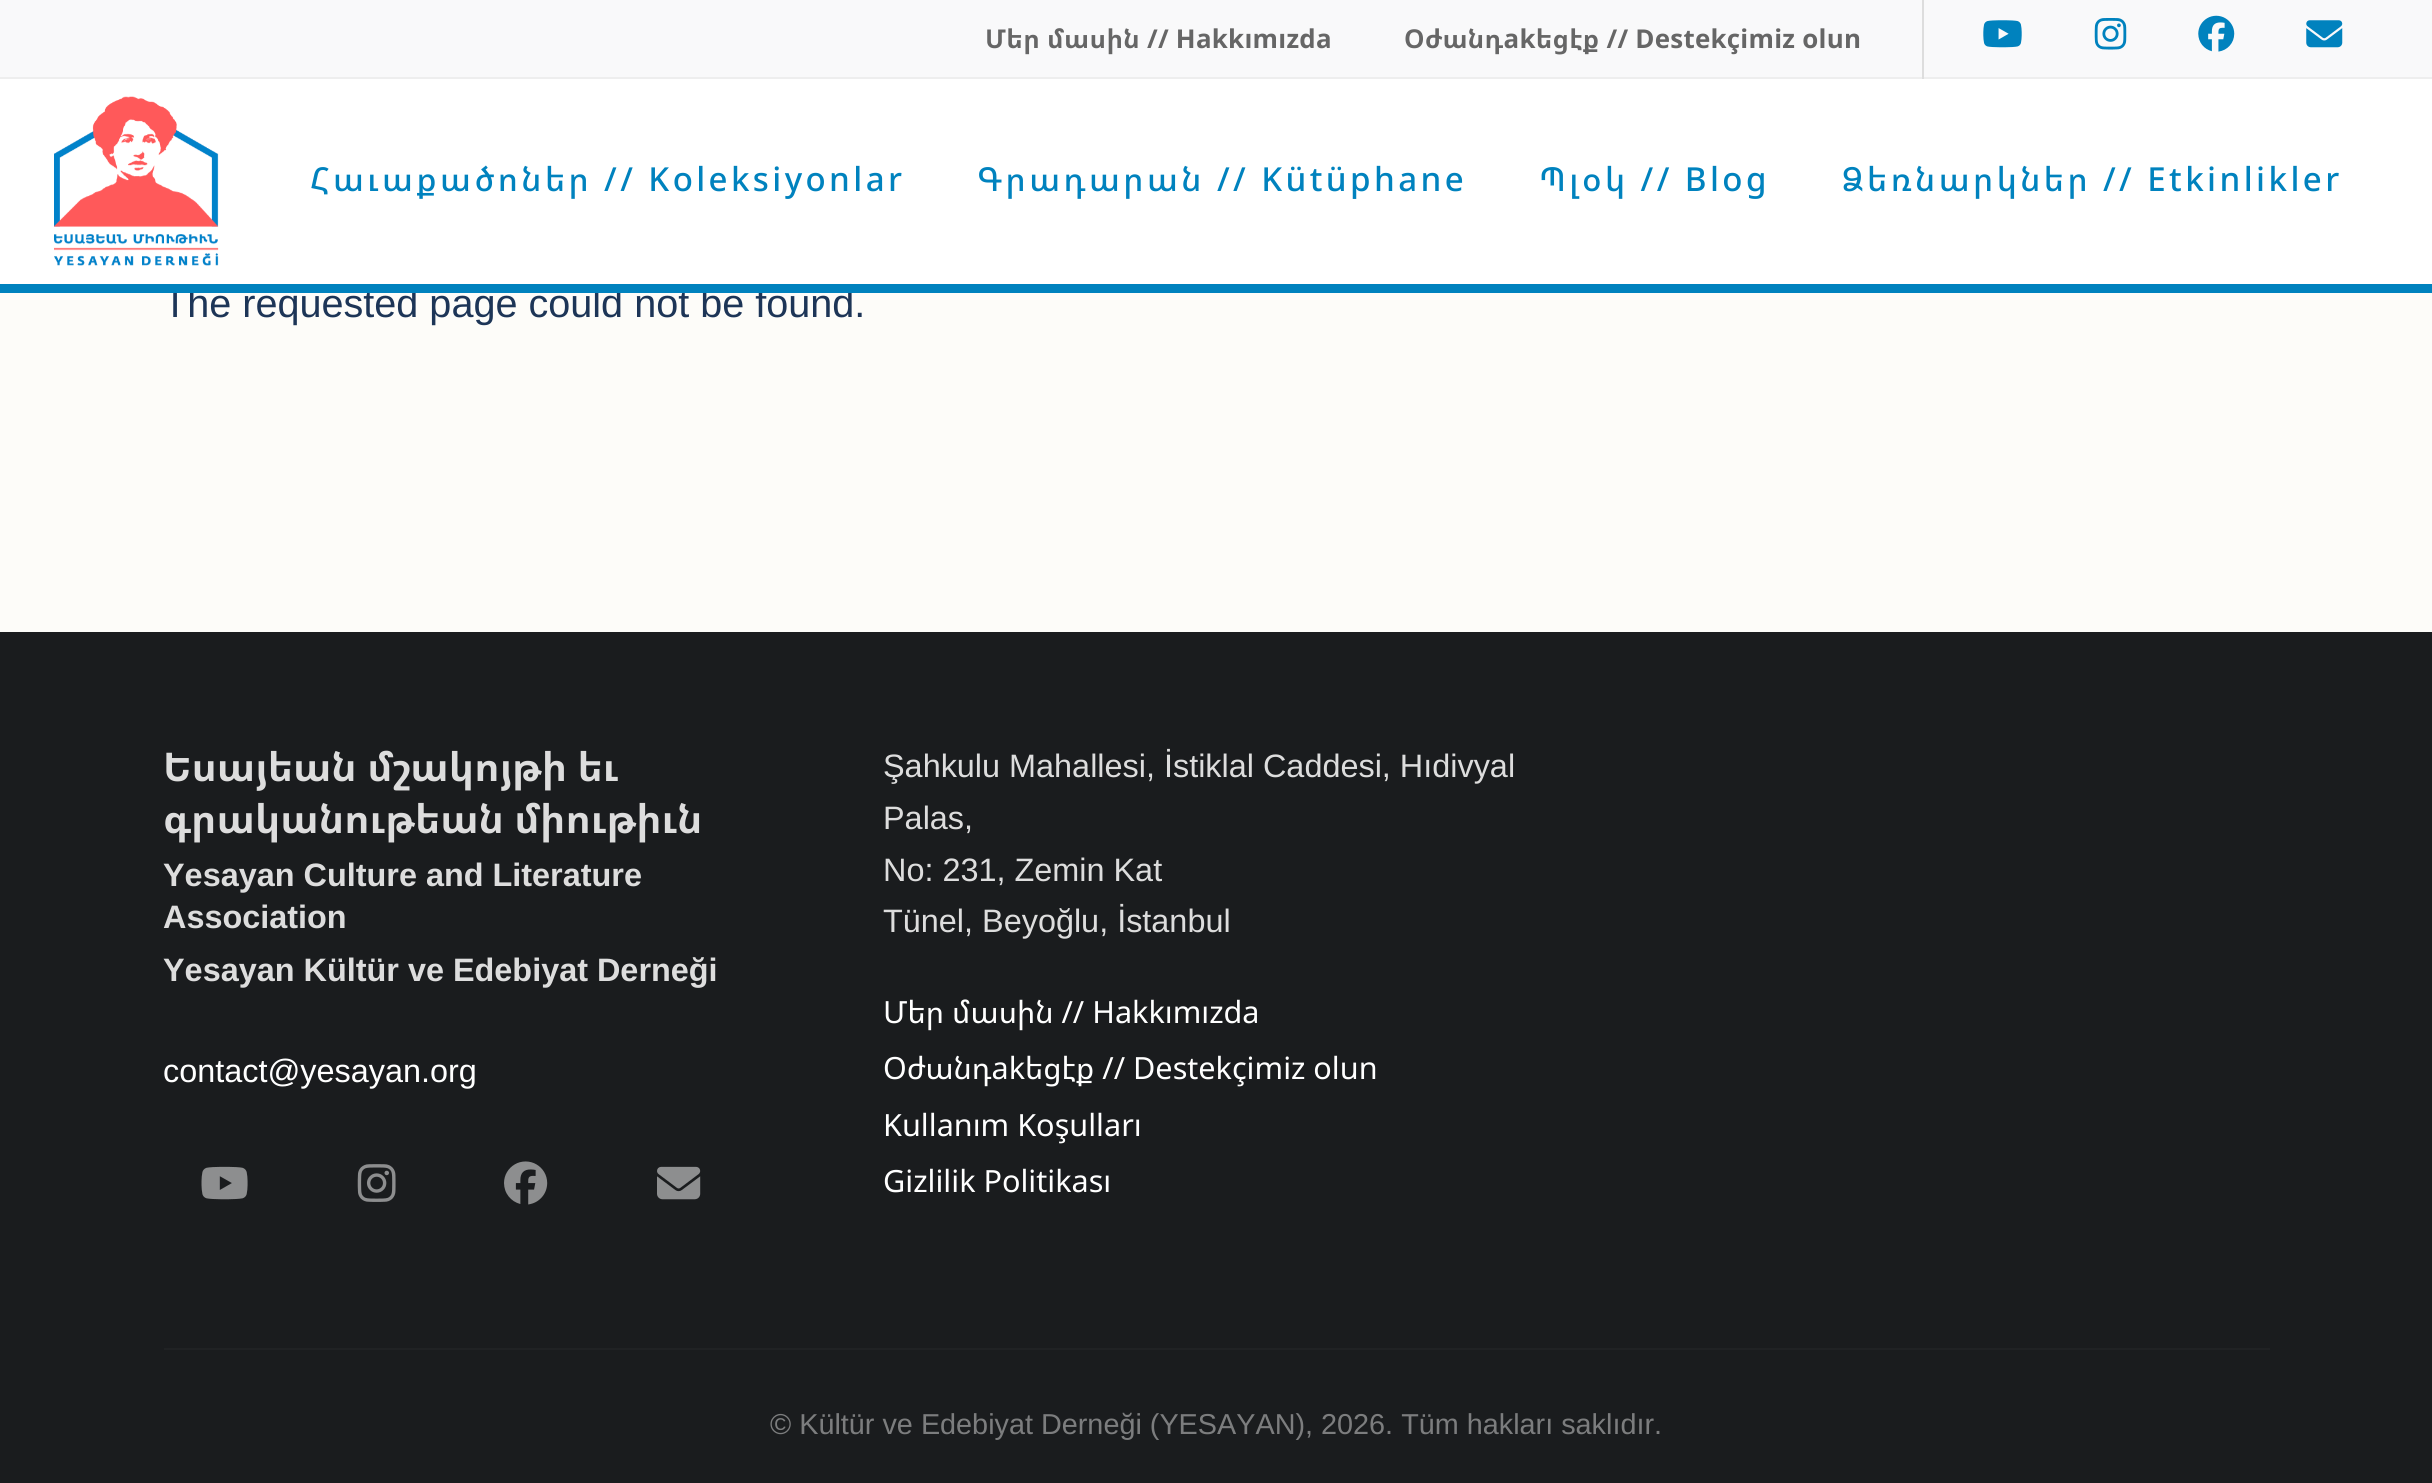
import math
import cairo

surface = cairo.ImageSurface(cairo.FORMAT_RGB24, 2432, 1483)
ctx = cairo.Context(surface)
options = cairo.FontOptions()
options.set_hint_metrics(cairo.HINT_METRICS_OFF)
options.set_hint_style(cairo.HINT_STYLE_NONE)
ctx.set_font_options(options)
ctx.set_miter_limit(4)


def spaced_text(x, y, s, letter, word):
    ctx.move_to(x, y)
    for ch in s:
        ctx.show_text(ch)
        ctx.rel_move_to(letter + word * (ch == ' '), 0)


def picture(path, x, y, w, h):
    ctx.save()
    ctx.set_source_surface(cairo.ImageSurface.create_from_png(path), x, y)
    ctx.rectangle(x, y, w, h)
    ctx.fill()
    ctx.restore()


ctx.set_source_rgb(0.992, 0.988, 0.973)
ctx.paint()
ctx.set_source_rgb(0.973, 0.976, 0.98)
ctx.rectangle(0, 0, 2432, 77)
ctx.fill()
ctx.set_source_rgb(0.933, 0.933, 0.933)
ctx.rectangle(0, 77, 2432, 2)
ctx.fill()
ctx.select_font_face("Noto Sans Armenian", cairo.FONT_SLANT_NORMAL, cairo.FONT_WEIGHT_BOLD)
ctx.set_font_size(25.9)
ctx.set_source_rgb(0.4, 0.4, 0.4)
spaced_text(985, 48, "Մեր մասին // Hakkımızda", 0.25, 0)
spaced_text(1404, 48, "Օժանդakեցէք // Destekçimiz olun", 0.25, 0)
ctx.set_source_rgb(0.867, 0.867, 0.867)
ctx.rectangle(1922, 0, 2, 81)
ctx.fill()
picture("img1.png", 1983, 20, 39, 28)
picture("img2.png", 2094, 18, 33, 32)
picture("img3.png", 2198, 15, 37, 37)
picture("img4.png", 2306, 20, 37, 28)
ctx.set_source_rgb(1, 1, 1)
ctx.rectangle(0, 79, 2432, 205)
ctx.fill()
ctx.select_font_face("Liberation Sans")
ctx.set_font_size(39.6)
ctx.set_source_rgb(0.114, 0.208, 0.341)
ctx.move_to(163, 317)
ctx.show_text("The requested page could not be found.")
ctx.set_source_rgb(0, 0.51, 0.745)
ctx.rectangle(0, 284, 2432, 9)
ctx.fill()
picture("img5.png", 54, 96, 165, 170)
ctx.select_font_face("Noto Sans Armenian Medium")
ctx.set_font_size(33.1)
spaced_text(310, 191, "Հաւաքածոներ // Koleksiyonlar", 3.4, 0)
spaced_text(977, 191, "Գրադարան // Kütüphane", 3.4, 0)
spaced_text(1539, 191, "Պլօկ // Blog", 3.4, 0)
spaced_text(1842, 191, "Ձեռնարկներ // Etkinlikler", 3.4, 0)
ctx.set_source_rgb(0.102, 0.11, 0.118)
ctx.rectangle(0, 632, 2432, 851)
ctx.fill()
ctx.select_font_face("Noto Sans Armenian", cairo.FONT_SLANT_NORMAL, cairo.FONT_WEIGHT_BOLD)
ctx.set_font_size(39.6)
ctx.set_source_rgb(0.867, 0.867, 0.867)
ctx.move_to(163, 781)
ctx.show_text("Եսայեան մշակոյթի եւ")
ctx.move_to(163, 833)
ctx.show_text("գրականութեան միութիւն")
ctx.select_font_face("Liberation Sans", cairo.FONT_SLANT_NORMAL, cairo.FONT_WEIGHT_BOLD)
ctx.set_font_size(32.4)
ctx.move_to(163, 886)
ctx.show_text("Yesayan Culture and Literature")
ctx.move_to(163, 928)
ctx.show_text("Association")
ctx.move_to(163, 981)
ctx.show_text("Yesayan Kültür ve Edebiyat Derneği")
ctx.select_font_face("Liberation Sans")
ctx.set_source_rgb(1, 1, 1)
ctx.move_to(163, 1082)
ctx.show_text("contact@yesayan.org")
picture("img6.png", 201, 1166, 47, 34)
picture("img7.png", 357, 1164, 39, 38)
picture("img8.png", 504, 1161, 44, 44)
picture("img9.png", 657, 1166, 44, 34)
ctx.set_source_rgb(0.867, 0.867, 0.867)
ctx.move_to(883, 777)
ctx.show_text("Şahkulu Mahallesi, İstiklal Caddesi, Hıdivyal")
ctx.move_to(883, 829)
ctx.show_text("Palas,")
ctx.move_to(883, 881)
ctx.show_text("No: 231, Zemin Kat")
ctx.move_to(883, 932)
ctx.show_text("Tünel, Beyoğlu, İstanbul")
ctx.select_font_face("Noto Sans Armenian")
ctx.set_font_size(30.6)
ctx.set_source_rgb(1, 1, 1)
ctx.move_to(883, 1023)
ctx.show_text("Մեր մասին // Hakkımızda")
ctx.move_to(883, 1079)
ctx.show_text("Օժանդakեցէք // Destekçimiz olun")
ctx.move_to(883, 1136)
ctx.show_text("Kullanım Koşulları")
ctx.move_to(883, 1192)
ctx.show_text("Gizlilik Politikası")
ctx.set_source_rgb(0.125, 0.133, 0.141)
ctx.rectangle(164, 1348, 2106, 2)
ctx.fill()
ctx.select_font_face("Liberation Sans")
ctx.set_font_size(28.8)
ctx.set_source_rgb(0.486, 0.49, 0.494)
ctx.move_to(770, 1434)
ctx.show_text("© Kültür ve Edebiyat Derneği (YESAYAN), 2026. Tüm hakları saklıdır.")
surface.write_to_png("page.png")
